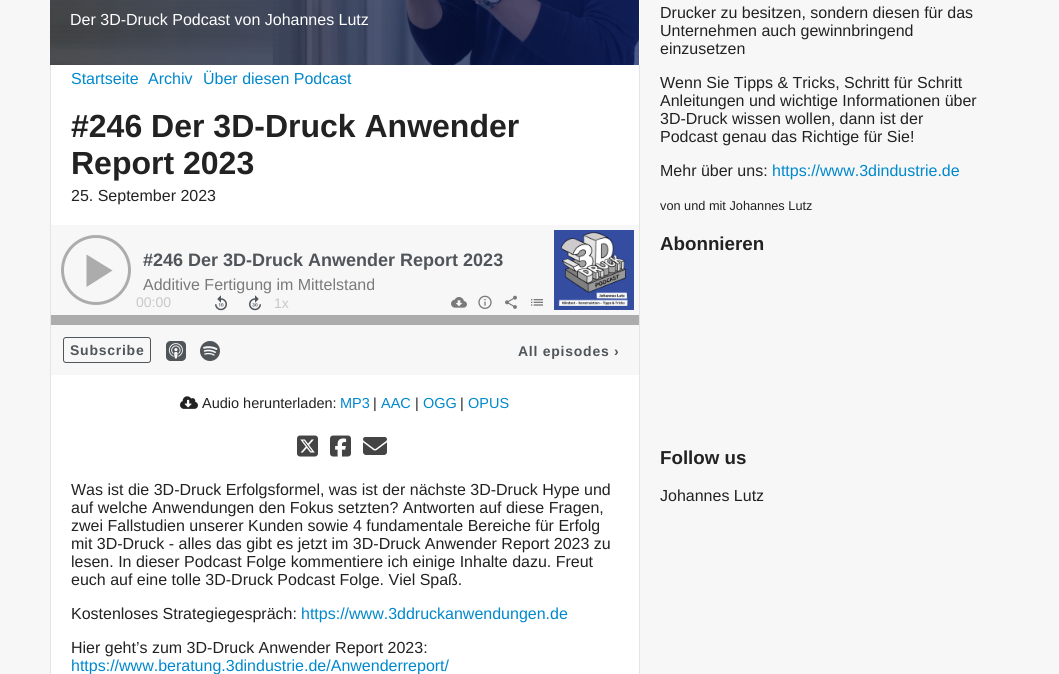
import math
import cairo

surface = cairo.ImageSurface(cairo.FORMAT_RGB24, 1059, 674)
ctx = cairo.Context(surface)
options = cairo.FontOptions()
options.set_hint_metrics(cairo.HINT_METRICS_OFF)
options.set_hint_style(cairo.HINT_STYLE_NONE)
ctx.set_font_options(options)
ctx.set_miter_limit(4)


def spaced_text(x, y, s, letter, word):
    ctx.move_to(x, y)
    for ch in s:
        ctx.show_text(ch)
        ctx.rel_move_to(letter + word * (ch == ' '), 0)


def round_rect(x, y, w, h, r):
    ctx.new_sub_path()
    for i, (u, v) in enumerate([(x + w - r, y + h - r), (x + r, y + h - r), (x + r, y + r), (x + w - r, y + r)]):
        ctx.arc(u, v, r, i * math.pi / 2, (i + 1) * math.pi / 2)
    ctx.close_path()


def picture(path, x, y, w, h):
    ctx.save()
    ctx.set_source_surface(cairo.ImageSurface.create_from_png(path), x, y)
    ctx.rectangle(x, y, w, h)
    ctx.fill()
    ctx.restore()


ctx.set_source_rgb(0.965, 0.965, 0.965)
ctx.paint()
ctx.set_source_rgb(1, 1, 1)
ctx.rectangle(51, 0, 589, 674)
ctx.fill()
picture("img1.png", 50, 0, 589, 65)
ctx.select_font_face("Liberation Sans")
ctx.set_font_size(16)
ctx.move_to(70, 25)
ctx.show_text("Der 3D-Druck Podcast von Johannes Lutz")
ctx.set_source_rgb(0.894, 0.894, 0.894)
ctx.rectangle(639, 65, 1, 609)
ctx.fill()
ctx.rectangle(50, 65, 1, 609)
ctx.fill()
ctx.set_source_rgb(0, 0.533, 0.8)
ctx.move_to(71, 84)
ctx.show_text("Startseite")
ctx.move_to(148, 84)
ctx.show_text("Archiv")
ctx.move_to(203, 84)
ctx.show_text("Über diesen Podcast")
ctx.select_font_face("Liberation Sans", cairo.FONT_SLANT_NORMAL, cairo.FONT_WEIGHT_BOLD)
ctx.set_font_size(32)
ctx.set_source_rgb(0.133, 0.133, 0.133)
ctx.move_to(71, 137)
ctx.show_text("#246 Der 3D-Druck Anwender")
ctx.move_to(71, 174)
ctx.show_text("Report 2023")
ctx.select_font_face("Liberation Sans")
ctx.set_font_size(16)
ctx.move_to(71, 201)
ctx.show_text("25. September 2023")
ctx.set_source_rgb(0.965, 0.965, 0.965)
ctx.rectangle(51, 225, 588, 150)
ctx.fill()
ctx.arc(96, 270, 33.5, 0, 2 * math.pi)
ctx.set_source_rgb(0.675, 0.675, 0.675)
ctx.set_line_width(3)
ctx.stroke()
ctx.new_path()
ctx.move_to(86.5, 254.5)
ctx.line_to(112.5, 270.5)
ctx.line_to(86.5, 287)
ctx.close_path()
ctx.fill()
ctx.select_font_face("Liberation Sans", cairo.FONT_SLANT_NORMAL, cairo.FONT_WEIGHT_BOLD)
ctx.set_font_size(18)
ctx.set_source_rgb(0.314, 0.333, 0.353)
ctx.move_to(143, 266)
ctx.show_text("#246 Der 3D-Druck Anwender Report 2023")
ctx.select_font_face("Liberation Sans")
ctx.set_font_size(16)
ctx.set_source_rgb(0.478, 0.478, 0.478)
ctx.move_to(143, 290)
ctx.show_text("Additive Fertigung im Mittelstand")
picture("img2.png", 554, 230, 80, 80)
ctx.set_font_size(14)
ctx.set_source_rgb(0.784, 0.784, 0.784)
ctx.move_to(136, 307)
ctx.show_text("00:00")
ctx.set_source_rgb(0.675, 0.675, 0.675)
ctx.rectangle(51, 315, 588, 10)
ctx.fill()
picture("img3.png", 215, 295, 12, 16)
picture("img4.png", 249, 295, 12, 16)
ctx.set_source_rgb(0.784, 0.784, 0.784)
ctx.move_to(274, 308)
ctx.show_text("1x")
picture("img5.png", 451, 297, 16, 11)
picture("img6.png", 478, 295, 14, 14)
picture("img7.png", 505, 295, 12, 14)
picture("img8.png", 531, 299, 12, 7)
round_rect(63.5, 337.5, 87, 25, 2.5)
ctx.set_source_rgb(0.314, 0.333, 0.353)
ctx.set_line_width(1)
ctx.stroke()
ctx.select_font_face("Liberation Sans", cairo.FONT_SLANT_NORMAL, cairo.FONT_WEIGHT_BOLD)
spaced_text(70, 355, "Subscribe", 0.75, 0)
picture("img9.png", 166, 341, 20, 20)
picture("img10.png", 200, 341, 20, 20)
spaced_text(518, 356, "All episodes ›", 0.75, 0)
picture("img11.png", 180, 396, 18, 13)
ctx.select_font_face("Liberation Sans")
ctx.set_font_size(14.5)
ctx.set_source_rgb(0.133, 0.133, 0.133)
ctx.move_to(202, 408)
ctx.show_text("Audio herunterladen:")
ctx.set_source_rgb(0, 0.533, 0.8)
ctx.move_to(340, 408)
ctx.show_text("MP3")
ctx.set_source_rgb(0.133, 0.133, 0.133)
ctx.move_to(373, 408)
ctx.show_text("|")
ctx.set_source_rgb(0, 0.533, 0.8)
ctx.move_to(381, 408)
ctx.show_text("AAC")
ctx.set_source_rgb(0.133, 0.133, 0.133)
ctx.move_to(415, 408)
ctx.show_text("|")
ctx.set_source_rgb(0, 0.533, 0.8)
ctx.move_to(423, 408)
ctx.show_text("OGG")
ctx.set_source_rgb(0.133, 0.133, 0.133)
ctx.move_to(460, 408)
ctx.show_text("|")
ctx.set_source_rgb(0, 0.533, 0.8)
ctx.move_to(468, 408)
ctx.show_text("OPUS")
picture("img12.png", 297, 435, 21, 22)
picture("img13.png", 330, 435, 21, 22)
picture("img14.png", 363, 437, 24, 18)
ctx.set_font_size(16)
ctx.set_source_rgb(0.133, 0.133, 0.133)
ctx.move_to(71, 495)
ctx.show_text("Was ist die 3D-Druck Erfolgsformel, was ist der nächste 3D-Druck Hype und")
ctx.move_to(71, 513)
ctx.show_text("auf welche Anwendungen den Fokus setzten? Antworten auf diese Fragen,")
ctx.move_to(71, 531)
ctx.show_text("zwei Fallstudien unserer Kunden sowie 4 fundamentale Bereiche für Erfolg")
ctx.move_to(71, 549)
ctx.show_text("mit 3D-Druck - alles das gibt es jetzt im 3D-Druck Anwender Report 2023 zu")
ctx.move_to(71, 567)
ctx.show_text("lesen. In dieser Podcast Folge kommentiere ich einige Inhalte dazu. Freut")
ctx.move_to(71, 585)
ctx.show_text("euch auf eine tolle 3D-Druck Podcast Folge. Viel Spaß.")
ctx.move_to(71, 619)
ctx.show_text("Kostenloses Strategiegespräch:")
ctx.set_source_rgb(0, 0.533, 0.8)
ctx.move_to(301, 619)
ctx.show_text("https://www.3ddruckanwendungen.de")
ctx.set_source_rgb(0.133, 0.133, 0.133)
ctx.move_to(71, 653)
ctx.show_text("Hier geht’s zum 3D-Druck Anwender Report 2023:")
ctx.set_source_rgb(0, 0.533, 0.8)
ctx.move_to(71, 671)
ctx.show_text("https://www.beratung.3dindustrie.de/Anwenderreport/")
ctx.set_source_rgb(0.133, 0.133, 0.133)
ctx.move_to(660, 18)
ctx.show_text("Drucker zu besitzen, sondern diesen für das")
ctx.move_to(660, 36)
ctx.show_text("Unternehmen auch gewinnbringend")
ctx.move_to(660, 54)
ctx.show_text("einzusetzen")
ctx.move_to(660, 88)
ctx.show_text("Wenn Sie Tipps & Tricks, Schritt für Schritt")
ctx.move_to(660, 106)
ctx.show_text("Anleitungen und wichtige Informationen über")
ctx.move_to(660, 124)
ctx.show_text("3D-Druck wissen wollen, dann ist der")
ctx.move_to(660, 142)
ctx.show_text("Podcast genau das Richtige für Sie!")
ctx.move_to(660, 176)
ctx.show_text("Mehr über uns:")
ctx.set_source_rgb(0, 0.533, 0.8)
ctx.move_to(772, 176)
ctx.show_text("https://www.3dindustrie.de")
ctx.set_font_size(12.75)
ctx.set_source_rgb(0.133, 0.133, 0.133)
ctx.move_to(660, 210)
ctx.show_text("von und mit Johannes Lutz")
ctx.select_font_face("Liberation Sans", cairo.FONT_SLANT_NORMAL, cairo.FONT_WEIGHT_BOLD)
ctx.set_font_size(18.75)
ctx.move_to(660, 250)
ctx.show_text("Abonnieren")
ctx.move_to(660, 464)
ctx.show_text("Follow us")
ctx.select_font_face("Liberation Sans")
ctx.set_font_size(16)
ctx.move_to(660, 501)
ctx.show_text("Johannes Lutz")
surface.write_to_png("page.png")
